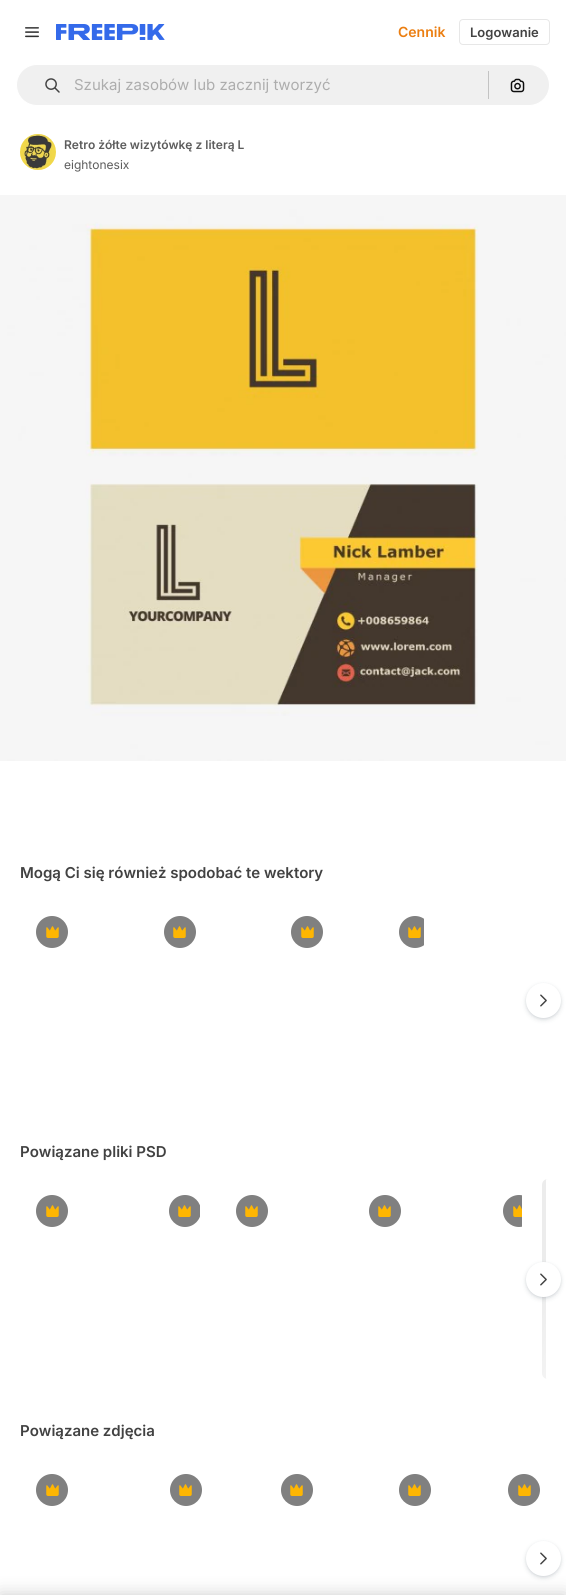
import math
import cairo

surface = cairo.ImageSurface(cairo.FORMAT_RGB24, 566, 1595)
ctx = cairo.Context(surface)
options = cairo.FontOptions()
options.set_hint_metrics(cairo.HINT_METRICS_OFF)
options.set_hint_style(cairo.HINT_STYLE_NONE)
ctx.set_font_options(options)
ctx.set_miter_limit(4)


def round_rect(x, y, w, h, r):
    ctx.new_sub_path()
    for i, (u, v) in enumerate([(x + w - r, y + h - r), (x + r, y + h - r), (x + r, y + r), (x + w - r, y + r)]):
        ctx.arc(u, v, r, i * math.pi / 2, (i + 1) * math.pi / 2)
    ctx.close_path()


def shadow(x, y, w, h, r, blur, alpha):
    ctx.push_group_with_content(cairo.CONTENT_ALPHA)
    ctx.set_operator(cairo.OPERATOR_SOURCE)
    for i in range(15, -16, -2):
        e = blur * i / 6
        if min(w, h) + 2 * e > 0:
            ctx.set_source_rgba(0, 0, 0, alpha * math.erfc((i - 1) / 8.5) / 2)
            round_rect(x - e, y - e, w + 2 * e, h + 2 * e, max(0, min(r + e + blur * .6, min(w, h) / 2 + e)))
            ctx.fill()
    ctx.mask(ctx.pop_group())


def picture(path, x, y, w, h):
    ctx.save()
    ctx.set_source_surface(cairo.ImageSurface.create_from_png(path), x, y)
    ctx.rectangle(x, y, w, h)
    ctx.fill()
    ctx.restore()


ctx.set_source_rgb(1, 1, 1)
ctx.paint()
picture("img1.png", 25, 27, 14, 11)
picture("img2.png", 56, 24, 109, 16)
ctx.select_font_face("Inter SemiBold")
ctx.set_font_size(14)
ctx.set_source_rgb(0.918, 0.494, 0.067)
ctx.move_to(398, 37)
ctx.show_text("Cennik")
round_rect(459.5, 19.5, 90, 25, 3.5)
ctx.set_source_rgb(0.906, 0.906, 0.906)
ctx.set_line_width(1)
ctx.stroke()
ctx.set_font_size(13)
ctx.set_source_rgb(0.259, 0.259, 0.259)
ctx.move_to(470, 37)
ctx.show_text("Logowanie")
ctx.set_source_rgb(0.941, 0.941, 0.941)
round_rect(16.5, 64.5, 533, 41, 20.5)
ctx.fill_preserve()
ctx.set_source_rgb(1, 1, 1)
ctx.stroke()
picture("img3.png", 45, 78, 15, 15)
ctx.select_font_face("Inter")
ctx.set_font_size(15)
ctx.set_source_rgb(0.678, 0.678, 0.678)
ctx.move_to(74, 90)
ctx.show_text("Szukaj zasobów lub zacznij tworzyć")
ctx.set_source_rgb(0.765, 0.765, 0.765)
ctx.rectangle(488, 71, 1, 28)
ctx.fill()
picture("img4.png", 510, 78, 15, 15)
picture("img5.png", 20, 134, 36, 36)
ctx.select_font_face("Inter SemiBold")
ctx.set_font_size(12)
ctx.set_source_rgb(0.361, 0.361, 0.361)
ctx.move_to(64, 149)
ctx.show_text("Retro żółte wizytówkę z literą L")
ctx.select_font_face("Inter")
ctx.move_to(64, 169)
ctx.show_text("eightonesix")
picture("img6.png", 0, 195, 566, 566)
ctx.select_font_face("Inter SemiBold")
ctx.set_font_size(15)
ctx.set_source_rgb(0.259, 0.259, 0.259)
ctx.move_to(20, 878)
ctx.show_text("Mogą Ci się również spodobać te wektory")
ctx.set_source_rgb(0.502, 0.502, 0.502)
ctx.new_path()
ctx.arc(52, 932, 16, 0, 2 * math.pi)
ctx.fill()
picture("img7.png", 46, 926, 13, 12)
ctx.arc(180, 932, 16, 0, 2 * math.pi)
ctx.fill()
picture("img7.png", 173, 926, 13, 12)
ctx.arc(307, 932, 16, 0, 2 * math.pi)
ctx.fill()
picture("img7.png", 301, 926, 13, 12)
ctx.save()
round_rect(383, 900, 41, 200, 16)
ctx.clip()
ctx.arc(415, 932, 16, 0, 2 * math.pi)
ctx.fill()
ctx.restore()
picture("img7.png", 408, 926, 13, 12)
ctx.set_source_rgb(0.216, 0.286, 0.341)
shadow(526, 985, 35, 35, 17.5, 2.5, 0.15)
shadow(526, 984, 35, 35, 17.5, 1, 0.1)
ctx.set_source_rgb(1, 1, 1)
ctx.arc(543.5, 1000.5, 17.5, 0, 2 * math.pi)
ctx.fill()
picture("img8.png", 540, 994, 7, 13)
ctx.set_source_rgb(0.259, 0.259, 0.259)
ctx.move_to(20, 1157)
ctx.show_text("Powiązane pliki PSD")
ctx.set_source_rgb(0.502, 0.502, 0.502)
ctx.new_path()
ctx.arc(52, 1211, 16, 0, 2 * math.pi)
ctx.fill()
picture("img7.png", 46, 1205, 13, 12)
ctx.save()
round_rect(153, 1179, 47, 200, 16)
ctx.clip()
ctx.arc(185, 1211, 16, 0, 2 * math.pi)
ctx.fill()
ctx.restore()
picture("img7.png", 178, 1205, 13, 12)
ctx.arc(252, 1211, 16, 0, 2 * math.pi)
ctx.fill()
picture("img7.png", 245, 1205, 13, 12)
ctx.arc(385, 1211, 16, 0, 2 * math.pi)
ctx.fill()
picture("img7.png", 378, 1205, 13, 12)
ctx.save()
round_rect(487, 1179, 35, 200, 16)
ctx.clip()
ctx.arc(519, 1211, 16, 0, 2 * math.pi)
ctx.fill()
ctx.restore()
picture("img9.png", 513, 1205, 9, 12)
gradient = cairo.LinearGradient(533, 1203, 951, 1355)
gradient.add_color_stop_rgba(0.08, 0.925, 0.925, 0.925, 1)
gradient.add_color_stop_rgba(0.18, 0.961, 0.961, 0.961, 1)
gradient.add_color_stop_rgba(0.33, 0.925, 0.925, 0.925, 1)
ctx.set_source(gradient)
ctx.new_path()
ctx.move_to(548, 1179)
ctx.line_to(546, 1179)
ctx.line_to(546, 1379)
ctx.line_to(548, 1379)
ctx.curve_to(544.5, 1379, 542, 1376.5, 542, 1373)
ctx.line_to(542, 1185)
ctx.curve_to(542, 1181.5, 544.5, 1179, 548, 1179)
ctx.close_path()
ctx.fill()
ctx.set_source_rgb(0.216, 0.286, 0.341)
shadow(526, 1264, 35, 35, 17.5, 2.5, 0.15)
shadow(526, 1263, 35, 35, 17.5, 1, 0.1)
ctx.set_source_rgb(1, 1, 1)
ctx.arc(543.5, 1279.5, 17.5, 0, 2 * math.pi)
ctx.fill()
picture("img8.png", 540, 1273, 7, 13)
ctx.set_source_rgb(0.259, 0.259, 0.259)
ctx.move_to(20, 1436)
ctx.show_text("Powiązane zdjęcia")
ctx.set_source_rgb(0.502, 0.502, 0.502)
ctx.new_path()
ctx.arc(52, 1490, 16, 0, 2 * math.pi)
ctx.fill()
picture("img7.png", 46, 1484, 13, 12)
ctx.arc(186, 1490, 16, 0, 2 * math.pi)
ctx.fill()
picture("img7.png", 179, 1484, 13, 12)
ctx.arc(297, 1490, 16, 0, 2 * math.pi)
ctx.fill()
picture("img7.png", 290, 1484, 13, 12)
ctx.arc(415, 1490, 16, 0, 2 * math.pi)
ctx.fill()
picture("img7.png", 408, 1484, 13, 12)
ctx.arc(524, 1490, 16, 0, 2 * math.pi)
ctx.fill()
picture("img7.png", 518, 1484, 13, 12)
ctx.set_source_rgb(0.216, 0.286, 0.341)
shadow(526, 1543, 35, 35, 17.5, 2.5, 0.15)
shadow(526, 1542, 35, 35, 17.5, 1, 0.1)
ctx.set_source_rgb(1, 1, 1)
ctx.arc(543.5, 1558.5, 17.5, 0, 2 * math.pi)
ctx.fill()
picture("img8.png", 540, 1552, 7, 13)
ctx.set_source_rgb(0, 0, 0)
shadow(0, 1595, 566, 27, 0, 9, 0.2)
surface.write_to_png("page.png")
